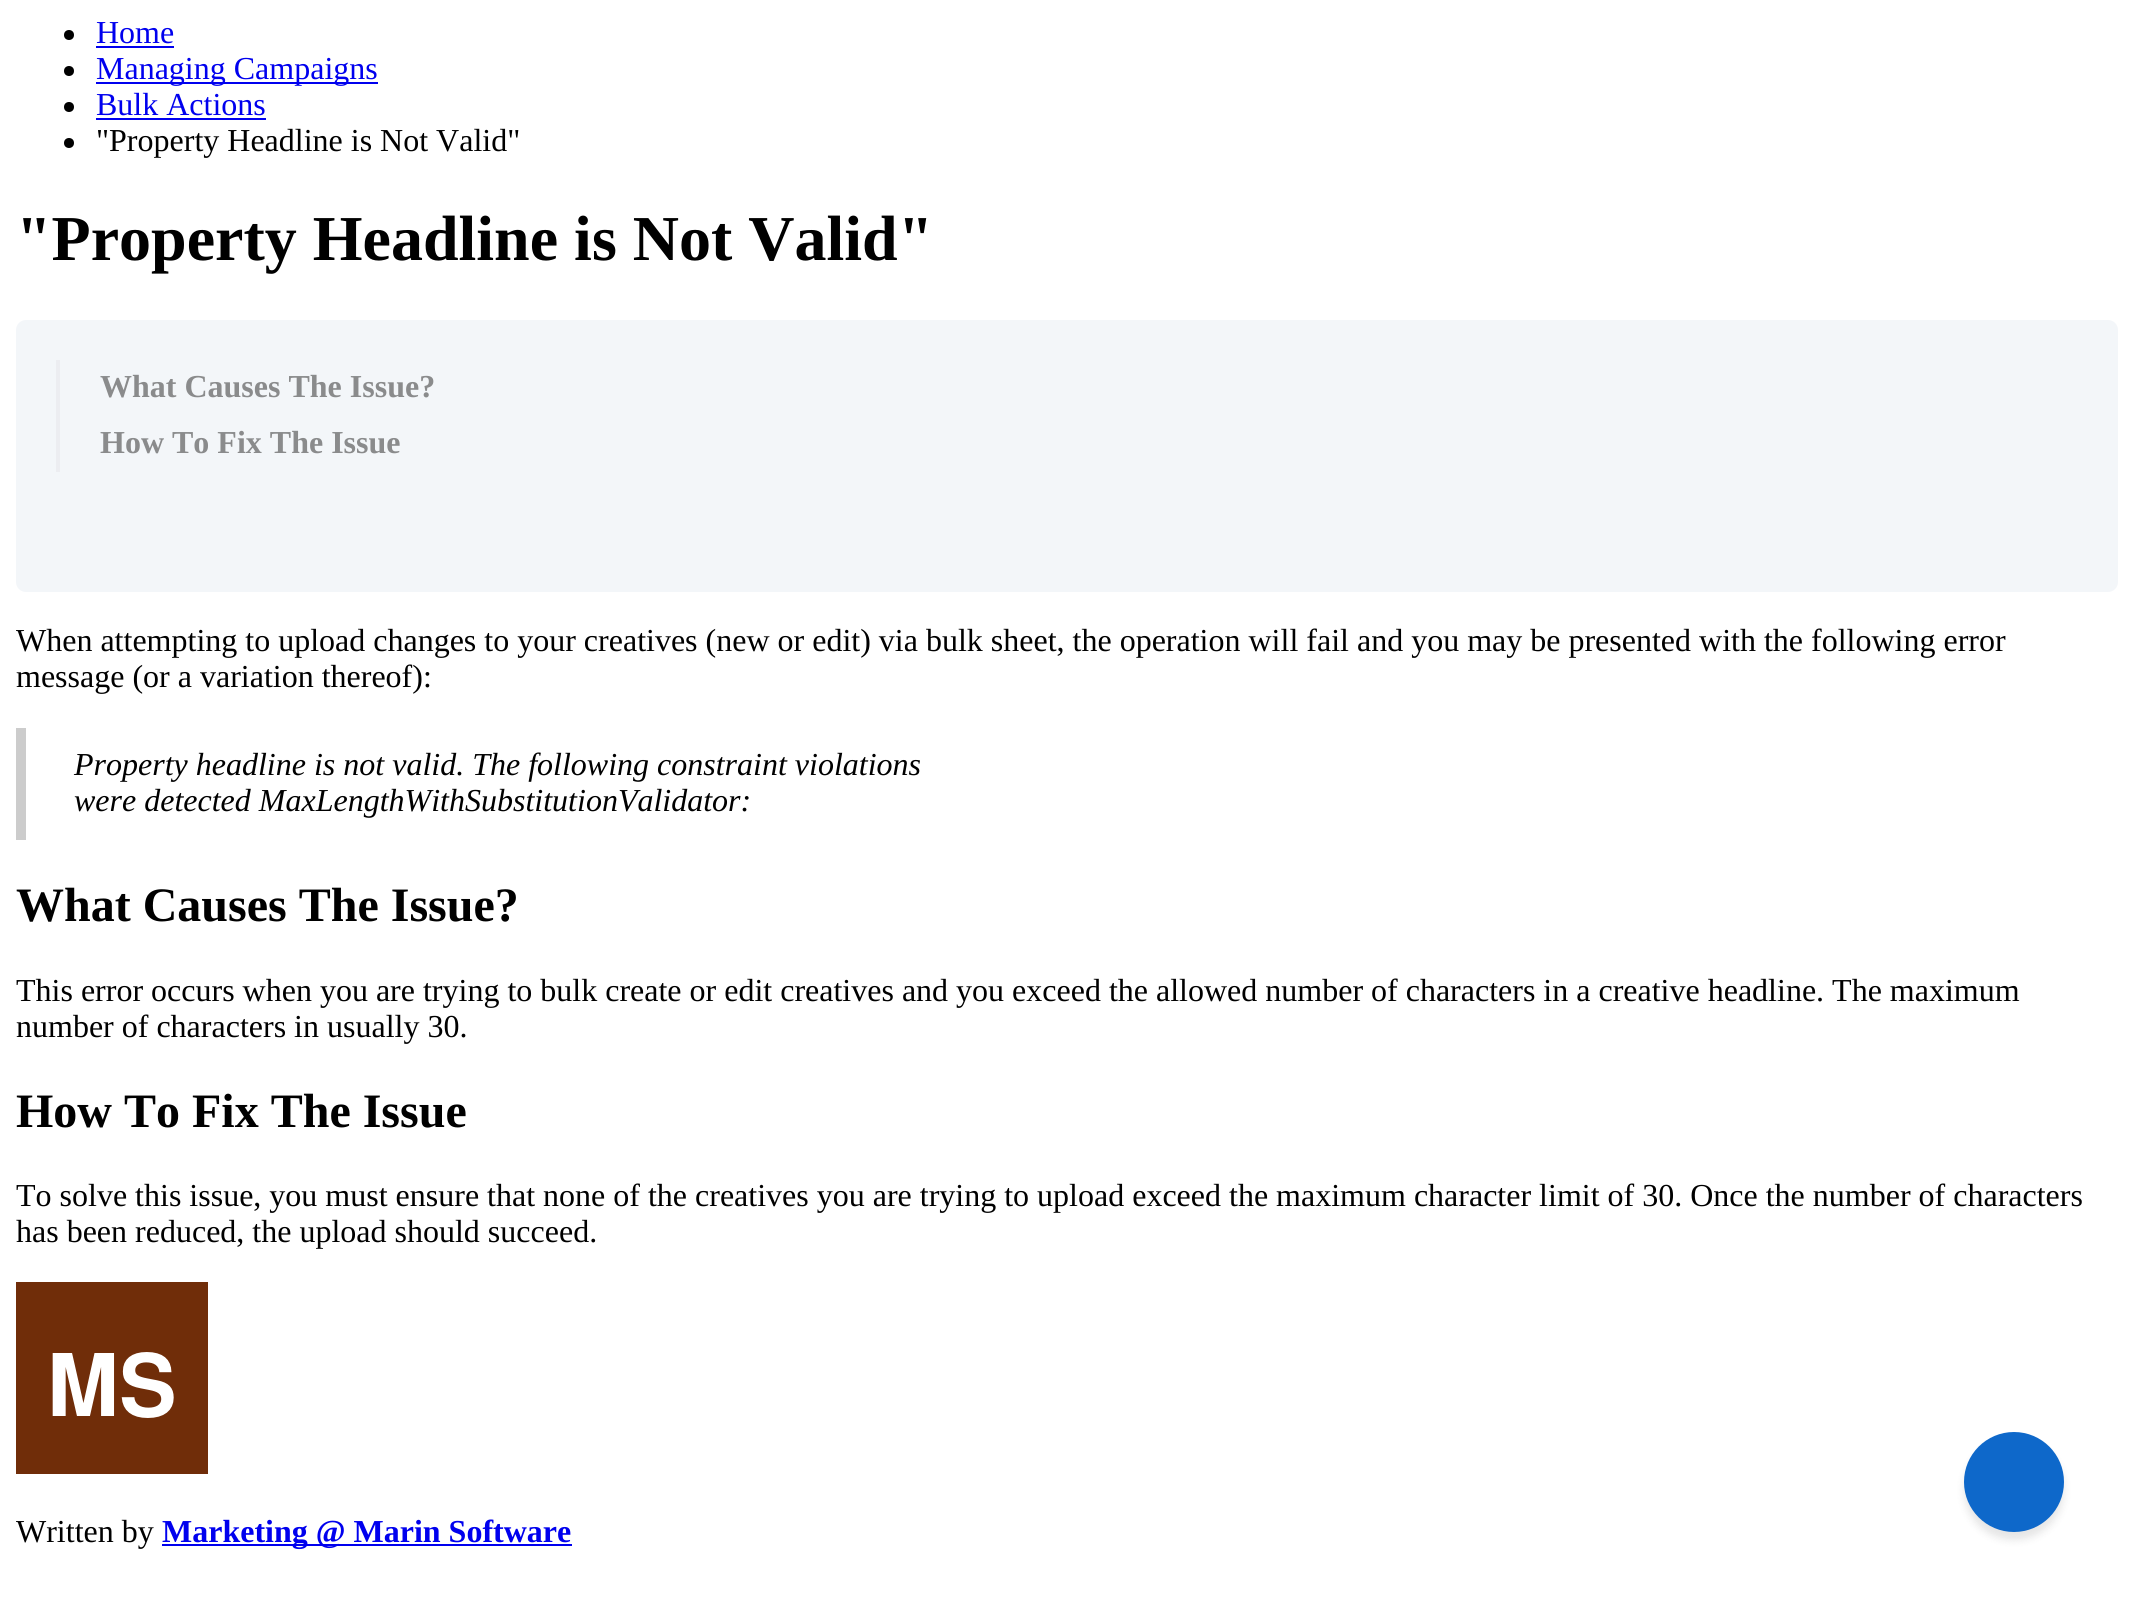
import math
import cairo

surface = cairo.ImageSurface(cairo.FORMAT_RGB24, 2134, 1602)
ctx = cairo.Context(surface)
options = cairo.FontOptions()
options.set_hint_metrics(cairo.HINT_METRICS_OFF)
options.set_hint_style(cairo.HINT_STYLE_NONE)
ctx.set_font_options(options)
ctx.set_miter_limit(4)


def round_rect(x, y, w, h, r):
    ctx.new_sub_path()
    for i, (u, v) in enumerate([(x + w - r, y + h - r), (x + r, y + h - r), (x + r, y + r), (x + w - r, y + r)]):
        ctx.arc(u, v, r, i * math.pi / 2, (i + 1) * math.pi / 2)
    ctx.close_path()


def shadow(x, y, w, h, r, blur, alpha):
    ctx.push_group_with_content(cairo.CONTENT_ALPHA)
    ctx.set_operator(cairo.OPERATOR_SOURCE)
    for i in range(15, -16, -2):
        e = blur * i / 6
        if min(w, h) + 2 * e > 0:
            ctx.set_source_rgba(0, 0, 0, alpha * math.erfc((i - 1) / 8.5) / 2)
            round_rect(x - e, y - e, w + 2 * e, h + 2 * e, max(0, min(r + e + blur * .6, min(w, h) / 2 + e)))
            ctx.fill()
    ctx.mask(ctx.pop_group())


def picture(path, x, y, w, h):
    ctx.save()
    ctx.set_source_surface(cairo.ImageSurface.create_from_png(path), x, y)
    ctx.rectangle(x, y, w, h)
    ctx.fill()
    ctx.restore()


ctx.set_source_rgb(1, 1, 1)
ctx.paint()
ctx.set_source_rgb(0, 0, 0)
ctx.arc(69, 35, 5, 0, 2 * math.pi)
ctx.fill()
ctx.select_font_face("Liberation Serif")
ctx.set_font_size(32)
ctx.set_source_rgb(0, 0, 0.933)
ctx.move_to(96, 43)
ctx.show_text("Home")
ctx.rectangle(96, 46, 78, 2)
ctx.fill()
ctx.set_source_rgb(0, 0, 0)
ctx.arc(69, 71, 5, 0, 2 * math.pi)
ctx.fill()
ctx.set_source_rgb(0, 0, 0.933)
ctx.rectangle(96, 82, 282, 2)
ctx.fill()
ctx.move_to(96, 79)
ctx.show_text("Managing Campaigns")
ctx.set_source_rgb(0, 0, 0)
ctx.new_path()
ctx.arc(69, 107, 5, 0, 2 * math.pi)
ctx.fill()
ctx.set_source_rgb(0, 0, 0.933)
ctx.move_to(96, 115)
ctx.show_text("Bulk Actions")
ctx.rectangle(96, 118, 170, 2)
ctx.fill()
ctx.set_source_rgb(0, 0, 0)
ctx.arc(69, 143, 5, 0, 2 * math.pi)
ctx.fill()
ctx.move_to(96, 151)
ctx.show_text("\"Property Headline is Not Valid\"")
ctx.select_font_face("Liberation Serif", cairo.FONT_SLANT_NORMAL, cairo.FONT_WEIGHT_BOLD)
ctx.set_font_size(64)
ctx.move_to(16, 260)
ctx.show_text("\"Property Headline is Not Valid\"")
ctx.set_source_rgb(0.953, 0.961, 0.973)
round_rect(16, 320, 2102, 272, 10)
ctx.fill()
ctx.set_source_rgb(0.922, 0.929, 0.945)
ctx.rectangle(56, 360, 4, 112)
ctx.fill()
ctx.set_font_size(32)
ctx.set_source_rgb(0.541, 0.545, 0.549)
ctx.move_to(100, 397)
ctx.show_text("What Causes The Issue?")
ctx.move_to(100, 453)
ctx.show_text("How To Fix The Issue")
ctx.select_font_face("Liberation Serif")
ctx.set_source_rgb(0, 0, 0)
ctx.move_to(16, 651)
ctx.show_text("When attempting to upload changes to your creatives (new or edit) via bulk sheet, the operation will fail and you may be presented with the following error")
ctx.move_to(16, 687)
ctx.show_text("message (or a variation thereof):")
ctx.set_source_rgb(0.8, 0.8, 0.8)
ctx.rectangle(16, 728, 10, 112)
ctx.fill()
ctx.select_font_face("Liberation Serif", cairo.FONT_SLANT_ITALIC)
ctx.set_source_rgb(0, 0, 0)
ctx.move_to(74, 775)
ctx.show_text("Property headline is not valid. The following constraint violations")
ctx.move_to(74, 811)
ctx.show_text("were detected MaxLengthWithSubstitutionValidator:")
ctx.select_font_face("Liberation Serif", cairo.FONT_SLANT_NORMAL, cairo.FONT_WEIGHT_BOLD)
ctx.set_font_size(48)
ctx.move_to(16, 921)
ctx.show_text("What Causes The Issue?")
ctx.select_font_face("Liberation Serif")
ctx.set_font_size(32)
ctx.move_to(16, 1001)
ctx.show_text("This error occurs when you are trying to bulk create or edit creatives and you exceed the allowed number of characters in a creative headline. The maximum")
ctx.move_to(16, 1037)
ctx.show_text("number of characters in usually 30.")
ctx.select_font_face("Liberation Serif", cairo.FONT_SLANT_NORMAL, cairo.FONT_WEIGHT_BOLD)
ctx.set_font_size(48)
ctx.move_to(16, 1127)
ctx.show_text("How To Fix The Issue")
ctx.select_font_face("Liberation Serif")
ctx.set_font_size(32)
ctx.move_to(16, 1206)
ctx.show_text("To solve this issue, you must ensure that none of the creatives you are trying to upload exceed the maximum character limit of 30. Once the number of characters")
ctx.move_to(16, 1242)
ctx.show_text("has been reduced, the upload should succeed.")
picture("img1.png", 16, 1282, 192, 192)
ctx.move_to(16, 1542)
ctx.show_text("Written by")
ctx.set_source_rgb(0, 0, 0.933)
ctx.rectangle(162, 1544, 410, 2)
ctx.fill()
ctx.select_font_face("Liberation Serif", cairo.FONT_SLANT_NORMAL, cairo.FONT_WEIGHT_BOLD)
ctx.move_to(162, 1542)
ctx.show_text("Marketing @ Marin Software")
ctx.set_source_rgb(0, 0, 0)
shadow(1964, 1440, 100, 100, 50, 4, 0.1)
ctx.set_source_rgb(0.055, 0.408, 0.792)
ctx.arc(2014, 1482, 50, 0, 2 * math.pi)
ctx.fill()
surface.write_to_png("page.png")
